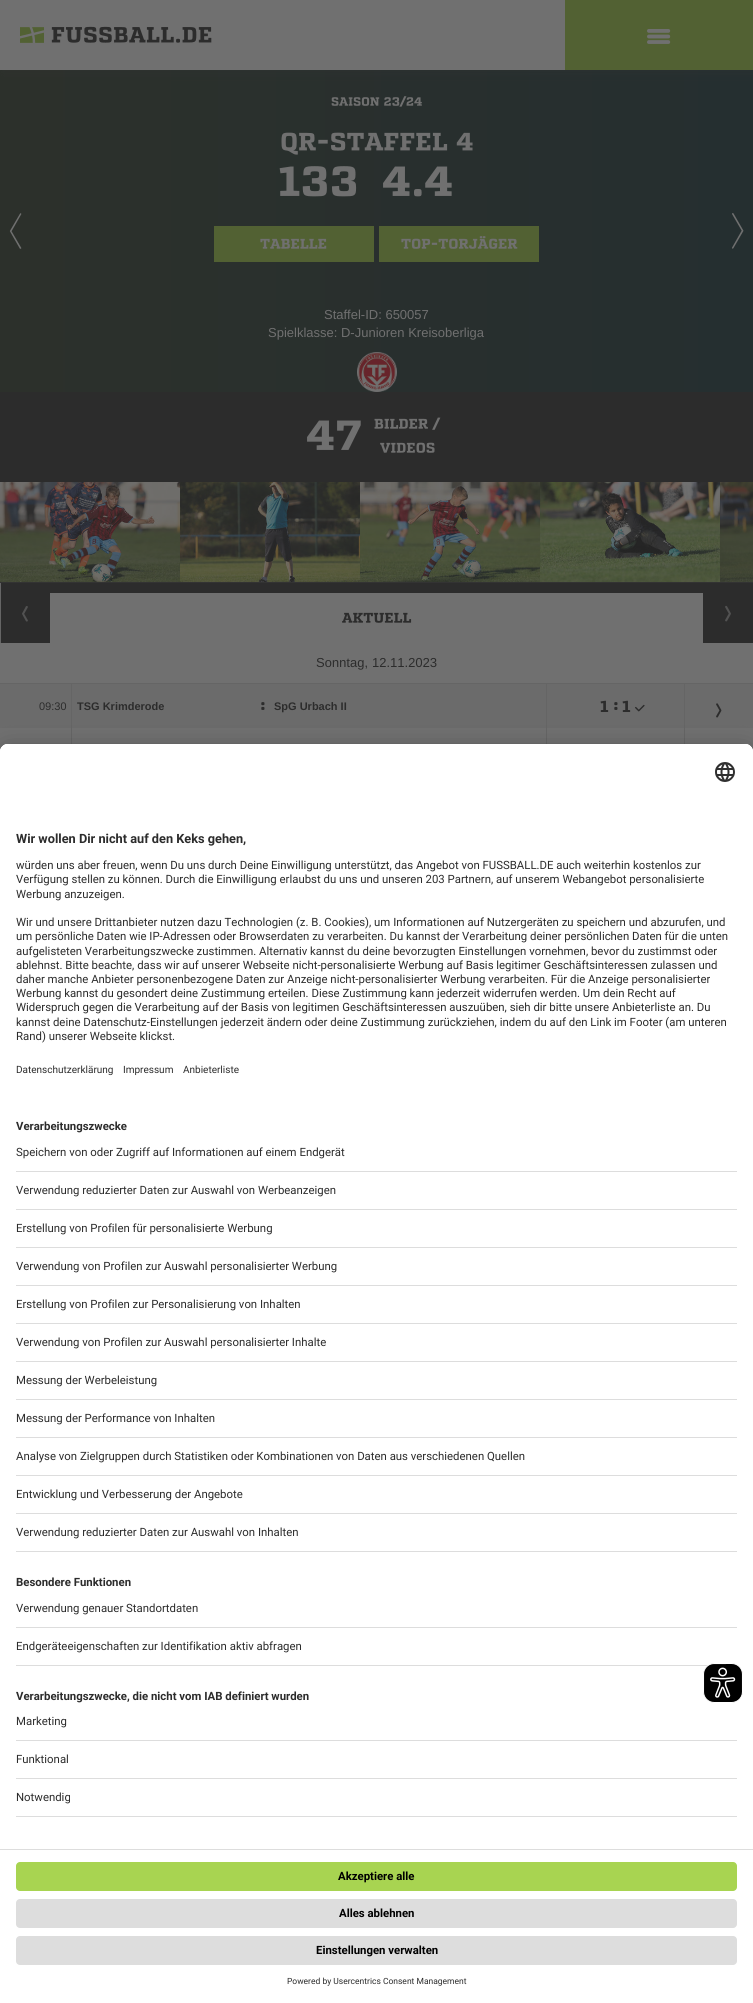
import math
import cairo

surface = cairo.ImageSurface(cairo.FORMAT_RGB24, 753, 2003)
ctx = cairo.Context(surface)
options = cairo.FontOptions()
options.set_hint_metrics(cairo.HINT_METRICS_OFF)
options.set_hint_style(cairo.HINT_STYLE_NONE)
ctx.set_font_options(options)
ctx.set_miter_limit(4)


def round_rect(x, y, w, h, r):
    ctx.new_sub_path()
    for i, (u, v) in enumerate([(x + w - r, y + h - r), (x + r, y + h - r), (x + r, y + r), (x + w - r, y + r)]):
        ctx.arc(u, v, r, i * math.pi / 2, (i + 1) * math.pi / 2)
    ctx.close_path()


def shadow(x, y, w, h, r, blur, alpha):
    ctx.push_group_with_content(cairo.CONTENT_ALPHA)
    ctx.set_operator(cairo.OPERATOR_SOURCE)
    for i in range(15, -16, -2):
        e = blur * i / 6
        if min(w, h) + 2 * e > 0:
            ctx.set_source_rgba(0, 0, 0, alpha * math.erfc((i - 1) / 8.5) / 2)
            round_rect(x - e, y - e, w + 2 * e, h + 2 * e, max(0, min(r + e + blur * .6, min(w, h) / 2 + e)))
            ctx.fill()
    ctx.mask(ctx.pop_group())


def picture(path, x, y, w, h):
    ctx.save()
    ctx.set_source_surface(cairo.ImageSurface.create_from_png(path), x, y)
    ctx.rectangle(x, y, w, h)
    ctx.fill()
    ctx.restore()


ctx.set_source_rgb(0.439, 0.439, 0.439)
ctx.paint()
gradient = cairo.LinearGradient(0, 231, 753, 231)
gradient.add_color_stop_rgba(0, 0.173, 0.188, 0.169, 1)
gradient.add_color_stop_rgba(1, 0.145, 0.184, 0.188, 1)
ctx.set_source(gradient)
ctx.rectangle(0, 70, 753, 322)
ctx.fill()
ctx.set_source_rgb(0.2, 0.2, 0.2)
shadow(2, 2, 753, 70, 0, 5, 0.3)
ctx.set_source_rgb(0.439, 0.439, 0.439)
ctx.rectangle(0, 0, 565, 70)
ctx.fill()
picture("img1.png", 20, 27, 24, 16)
picture("img2.png", 51, 26, 161, 17)
ctx.set_source_rgb(0.322, 0.38, 0.2)
ctx.rectangle(565, 0, 188, 70)
ctx.fill()
picture("img3.png", 647, 29, 24, 15)
picture("img4.png", 9, 213, 13, 36)
picture("img5.png", 331, 96, 91, 11)
picture("img6.png", 281, 132, 192, 23)
picture("img7.png", 279, 166, 78, 31)
picture("img8.png", 383, 166, 69, 31)
ctx.rectangle(214, 226, 160, 36)
ctx.fill()
picture("img9.png", 260, 238, 67, 11)
ctx.rectangle(379, 226, 160, 36)
ctx.fill()
picture("img10.png", 401, 236, 117, 13)
picture("img11.png", 732, 213, 12, 36)
ctx.select_font_face("Liberation Sans")
ctx.set_font_size(13)
ctx.set_source_rgb(0.439, 0.439, 0.439)
ctx.move_to(324, 319)
ctx.show_text("Staffel-ID: 650057")
ctx.move_to(268, 337)
ctx.show_text("Spielklasse: D-Junioren Kreisoberliga")
picture("img12.png", 357, 352, 40, 40)
ctx.set_source_rgb(0.173, 0.173, 0.173)
ctx.rectangle(0, 392, 753, 90)
ctx.fill()
ctx.set_source_rgb(0.2, 0.2, 0.2)
ctx.rectangle(0, 582, 753, 1)
ctx.fill()
picture("img13.png", 307, 420, 54, 30)
picture("img14.png", 374, 417, 67, 13)
picture("img15.png", 380, 442, 55, 11)
picture("img16.png", 0, 482, 180, 100)
picture("img17.png", 180, 482, 180, 100)
picture("img18.png", 360, 482, 180, 100)
picture("img19.png", 540, 482, 180, 100)
picture("img20.png", 720, 482, 33, 100)
ctx.set_source_rgb(0.173, 0.173, 0.173)
ctx.rectangle(1, 583, 752, 60)
ctx.fill()
ctx.set_source_rgb(0.396, 0.396, 0.396)
ctx.rectangle(0, 583, 1, 60)
ctx.fill()
picture("img21.png", 22, 606, 6, 16)
ctx.set_source_rgb(0.439, 0.439, 0.439)
ctx.rectangle(50, 593, 653, 50)
ctx.fill()
picture("img22.png", 342, 612, 70, 11)
picture("img23.png", 725, 605, 6, 17)
ctx.set_source_rgb(0.396, 0.396, 0.396)
ctx.rectangle(0, 683, 753, 1)
ctx.fill()
picture("img24.png", 316, 657, 51, 13)
picture("img25.png", 373, 657, 64, 11)
ctx.set_source_rgb(0.42, 0.42, 0.42)
ctx.rectangle(0, 684, 71, 44)
ctx.fill()
picture("img26.png", 39, 702, 28, 9)
ctx.rectangle(72, 684, 474, 44)
ctx.fill()
ctx.set_source_rgb(0.396, 0.396, 0.396)
ctx.rectangle(71, 684, 1, 60)
ctx.fill()
ctx.select_font_face("Liberation Sans", cairo.FONT_SLANT_NORMAL, cairo.FONT_WEIGHT_BOLD)
ctx.set_font_size(11)
ctx.set_source_rgb(0.173, 0.173, 0.173)
ctx.move_to(77, 710)
ctx.show_text("TSG Krimderode")
picture("img27.png", 261, 702, 4, 8)
ctx.move_to(274, 710)
ctx.show_text("SpG Urbach II")
ctx.set_source_rgb(0.42, 0.42, 0.42)
ctx.rectangle(547, 684, 137, 44)
ctx.fill()
ctx.set_source_rgb(0.396, 0.396, 0.396)
ctx.rectangle(546, 684, 1, 60)
ctx.fill()
picture("img28.png", 600, 700, 9, 12)
picture("img27.png", 614, 702, 4, 8)
picture("img28.png", 622, 700, 9, 12)
picture("img29.png", 635, 704, 10, 8)
ctx.set_source_rgb(0.42, 0.42, 0.42)
ctx.rectangle(685, 684, 68, 44)
ctx.fill()
ctx.set_source_rgb(0.396, 0.396, 0.396)
ctx.rectangle(684, 684, 1, 60)
ctx.fill()
picture("img30.png", 716, 703, 6, 15)
ctx.set_source_rgb(0, 0, 0)
shadow(0, 764, 753, 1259, 8, 14, 0.3)
shadow(0, 749, 753, 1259, 8, 13, 0.22)
ctx.set_source_rgb(1, 1, 1)
ctx.new_path()
ctx.move_to(8, 744)
ctx.line_to(745, 744)
ctx.curve_to(749.5, 744, 753, 747.5, 753, 752)
ctx.line_to(753, 2003)
ctx.line_to(0, 2003)
ctx.line_to(0, 752)
ctx.curve_to(0, 747.5, 3.5, 744, 8, 744)
ctx.close_path()
ctx.fill()
ctx.new_path()
ctx.move_to(8, 744)
ctx.line_to(745, 744)
ctx.curve_to(749.5, 744, 753, 747.5, 753, 752)
ctx.line_to(753, 1849)
ctx.line_to(0, 1849)
ctx.line_to(0, 752)
ctx.curve_to(0, 747.5, 3.5, 744, 8, 744)
ctx.close_path()
ctx.fill()
ctx.new_path()
ctx.move_to(8, 744)
ctx.line_to(745, 744)
ctx.curve_to(749.5, 744, 753, 747.5, 753, 752)
ctx.line_to(753, 1108)
ctx.line_to(0, 1108)
ctx.line_to(0, 752)
ctx.curve_to(0, 747.5, 3.5, 744, 8, 744)
ctx.close_path()
ctx.fill()
picture("img31.png", 715, 762, 20, 20)
ctx.select_font_face("Roboto", cairo.FONT_SLANT_NORMAL, cairo.FONT_WEIGHT_BOLD)
ctx.set_font_size(12.75)
ctx.set_source_rgb(0.173, 0.173, 0.173)
ctx.move_to(16, 843)
ctx.show_text("Wir wollen Dir nicht auf den Keks gehen,")
ctx.select_font_face("Roboto")
ctx.set_font_size(11.38)
ctx.move_to(16, 869)
ctx.show_text("würden uns aber freuen, wenn Du uns durch Deine Einwilligung unterstützt, das Angebot von FUSSBALL.DE auch weiterhin kostenlos zur")
ctx.move_to(16, 883)
ctx.show_text("Verfügung stellen zu können. Durch die Einwilligung erlaubst du uns und unseren 203 Partnern, auf unserem Webangebot personalisierte")
ctx.move_to(16, 898)
ctx.show_text("Werbung anzuzeigen.")
ctx.move_to(16, 926)
ctx.show_text("Wir und unsere Drittanbieter nutzen dazu Technologien (z. B. Cookies), um Informationen auf Nutzergeräten zu speichern und abzurufen, und")
ctx.move_to(16, 940)
ctx.show_text("um persönliche Daten wie IP-Adressen oder Browserdaten zu verarbeiten. Du kannst der Verarbeitung deiner persönlichen Daten für die unten")
ctx.move_to(16, 955)
ctx.show_text("aufgelisteten Verarbeitungszwecke zustimmen. Alternativ kannst du deine bevorzugten Einstellungen vornehmen, bevor du zustimmst oder")
ctx.move_to(16, 969)
ctx.show_text("ablehnst. Bitte beachte, dass wir auf unserer Webseite nicht-personalisierte Werbung auf Basis legitimer Geschäftsinteressen zulassen und")
ctx.move_to(16, 983)
ctx.show_text("daher manche Anbieter personenbezogene Daten zur Anzeige nicht-personalisierter Werbung verarbeiten. Für die Anzeige personalisierter")
ctx.move_to(16, 997)
ctx.show_text("Werbung kannst du gesondert deine Zustimmung erteilen. Diese Zustimmung kann jederzeit widerrufen werden. Um dein Recht auf")
ctx.move_to(16, 1011)
ctx.show_text("Widerspruch gegen die Verarbeitung auf der Basis von legitimen Geschäftsinteressen auszuüben, sieh dir bitte unsere Anbieterliste an. Du")
ctx.move_to(16, 1026)
ctx.show_text("kannst deine Datenschutz-Einstellungen jederzeit ändern oder deine Zustimmung zurückziehen, indem du auf den Link im Footer (am unteren")
ctx.move_to(16, 1040)
ctx.show_text("Rand) unserer Webseite klickst.")
ctx.set_font_size(10)
ctx.move_to(16, 1073)
ctx.show_text("Datenschutzerklärung")
ctx.move_to(123, 1073)
ctx.show_text("Impressum")
ctx.move_to(183, 1073)
ctx.show_text("Anbieterliste")
ctx.select_font_face("Roboto", cairo.FONT_SLANT_NORMAL, cairo.FONT_WEIGHT_BOLD)
ctx.set_font_size(11.38)
ctx.move_to(16, 1130)
ctx.show_text("Verarbeitungszwecke")
ctx.set_source_rgb(0.867, 0.867, 0.867)
ctx.rectangle(16, 1171, 721, 1)
ctx.fill()
ctx.select_font_face("Roboto")
ctx.set_source_rgb(0.173, 0.173, 0.173)
ctx.move_to(16, 1156)
ctx.show_text("Speichern von oder Zugriff auf Informationen auf einem Endgerät")
ctx.set_source_rgb(0.867, 0.867, 0.867)
ctx.rectangle(16, 1209, 721, 1)
ctx.fill()
ctx.set_source_rgb(0.173, 0.173, 0.173)
ctx.move_to(16, 1194)
ctx.show_text("Verwendung reduzierter Daten zur Auswahl von Werbeanzeigen")
ctx.set_source_rgb(0.867, 0.867, 0.867)
ctx.rectangle(16, 1247, 721, 1)
ctx.fill()
ctx.set_source_rgb(0.173, 0.173, 0.173)
ctx.move_to(16, 1232)
ctx.show_text("Erstellung von Profilen für personalisierte Werbung")
ctx.set_source_rgb(0.867, 0.867, 0.867)
ctx.rectangle(16, 1285, 721, 1)
ctx.fill()
ctx.set_source_rgb(0.173, 0.173, 0.173)
ctx.move_to(16, 1270)
ctx.show_text("Verwendung von Profilen zur Auswahl personalisierter Werbung")
ctx.set_source_rgb(0.867, 0.867, 0.867)
ctx.rectangle(16, 1323, 721, 1)
ctx.fill()
ctx.set_source_rgb(0.173, 0.173, 0.173)
ctx.move_to(16, 1308)
ctx.show_text("Erstellung von Profilen zur Personalisierung von Inhalten")
ctx.set_source_rgb(0.867, 0.867, 0.867)
ctx.rectangle(16, 1361, 721, 1)
ctx.fill()
ctx.set_source_rgb(0.173, 0.173, 0.173)
ctx.move_to(16, 1346)
ctx.show_text("Verwendung von Profilen zur Auswahl personalisierter Inhalte")
ctx.set_source_rgb(0.867, 0.867, 0.867)
ctx.rectangle(16, 1399, 721, 1)
ctx.fill()
ctx.set_source_rgb(0.173, 0.173, 0.173)
ctx.move_to(16, 1384)
ctx.show_text("Messung der Werbeleistung")
ctx.set_source_rgb(0.867, 0.867, 0.867)
ctx.rectangle(16, 1437, 721, 1)
ctx.fill()
ctx.set_source_rgb(0.173, 0.173, 0.173)
ctx.move_to(16, 1422)
ctx.show_text("Messung der Performance von Inhalten")
ctx.set_source_rgb(0.867, 0.867, 0.867)
ctx.rectangle(16, 1475, 721, 1)
ctx.fill()
ctx.set_source_rgb(0.173, 0.173, 0.173)
ctx.move_to(16, 1460)
ctx.show_text("Analyse von Zielgruppen durch Statistiken oder Kombinationen von Daten aus verschiedenen Quellen")
ctx.set_source_rgb(0.867, 0.867, 0.867)
ctx.rectangle(16, 1513, 721, 1)
ctx.fill()
ctx.set_source_rgb(0.173, 0.173, 0.173)
ctx.move_to(16, 1498)
ctx.show_text("Entwicklung und Verbesserung der Angebote")
ctx.set_source_rgb(0.867, 0.867, 0.867)
ctx.rectangle(16, 1551, 721, 1)
ctx.fill()
ctx.set_source_rgb(0.173, 0.173, 0.173)
ctx.move_to(16, 1536)
ctx.show_text("Verwendung reduzierter Daten zur Auswahl von Inhalten")
ctx.select_font_face("Roboto", cairo.FONT_SLANT_NORMAL, cairo.FONT_WEIGHT_BOLD)
ctx.move_to(16, 1586)
ctx.show_text("Besondere Funktionen")
ctx.set_source_rgb(0.867, 0.867, 0.867)
ctx.rectangle(16, 1627, 721, 1)
ctx.fill()
ctx.select_font_face("Roboto")
ctx.set_source_rgb(0.173, 0.173, 0.173)
ctx.move_to(16, 1612)
ctx.show_text("Verwendung genauer Standortdaten")
ctx.set_source_rgb(0.867, 0.867, 0.867)
ctx.rectangle(16, 1665, 693, 1)
ctx.fill()
ctx.set_source_rgb(0.173, 0.173, 0.173)
ctx.move_to(16, 1650)
ctx.show_text("Endgeräteeigenschaften zur Identifikation aktiv abfragen")
ctx.select_font_face("Roboto", cairo.FONT_SLANT_NORMAL, cairo.FONT_WEIGHT_BOLD)
ctx.move_to(16, 1700)
ctx.show_text("Verarbeitungszwecke, die nicht vom IAB definiert wurden")
ctx.set_source_rgb(0.867, 0.867, 0.867)
ctx.rectangle(16, 1740, 721, 1)
ctx.fill()
ctx.select_font_face("Roboto")
ctx.set_source_rgb(0.173, 0.173, 0.173)
ctx.move_to(16, 1725)
ctx.show_text("Marketing")
ctx.set_source_rgb(0.867, 0.867, 0.867)
ctx.rectangle(16, 1778, 721, 1)
ctx.fill()
ctx.set_source_rgb(0.173, 0.173, 0.173)
ctx.move_to(16, 1763)
ctx.show_text("Funktional")
ctx.set_source_rgb(0.867, 0.867, 0.867)
ctx.rectangle(16, 1816, 721, 1)
ctx.fill()
ctx.set_source_rgb(0.173, 0.173, 0.173)
ctx.move_to(16, 1801)
ctx.show_text("Notwendig")
ctx.set_source_rgb(0.867, 0.867, 0.867)
ctx.rectangle(0, 1849, 753, 1)
ctx.fill()
ctx.set_source_rgb(0.659, 0.831, 0.318)
round_rect(16, 1862, 721, 29, 4)
ctx.fill()
ctx.select_font_face("Roboto", cairo.FONT_SLANT_NORMAL, cairo.FONT_WEIGHT_BOLD)
ctx.set_source_rgb(0, 0, 0)
ctx.move_to(338, 1880)
ctx.show_text("Akzeptiere alle")
ctx.set_source_rgb(0.867, 0.867, 0.867)
round_rect(16, 1899, 721, 29, 4)
ctx.fill()
ctx.set_source_rgb(0, 0, 0)
ctx.move_to(339, 1917)
ctx.show_text("Alles ablehnen")
ctx.set_source_rgb(0.867, 0.867, 0.867)
round_rect(16, 1936, 721, 29, 4)
ctx.fill()
ctx.set_source_rgb(0, 0, 0)
ctx.move_to(316, 1954)
ctx.show_text("Einstellungen verwalten")
ctx.select_font_face("Roboto")
ctx.set_font_size(8.5)
ctx.set_source_rgb(0.173, 0.173, 0.173)
ctx.move_to(287, 1984)
ctx.show_text("Powered by Usercentrics Consent Management")
picture("img32.png", 703, 1663, 40, 40)
surface.write_to_png("page.png")
